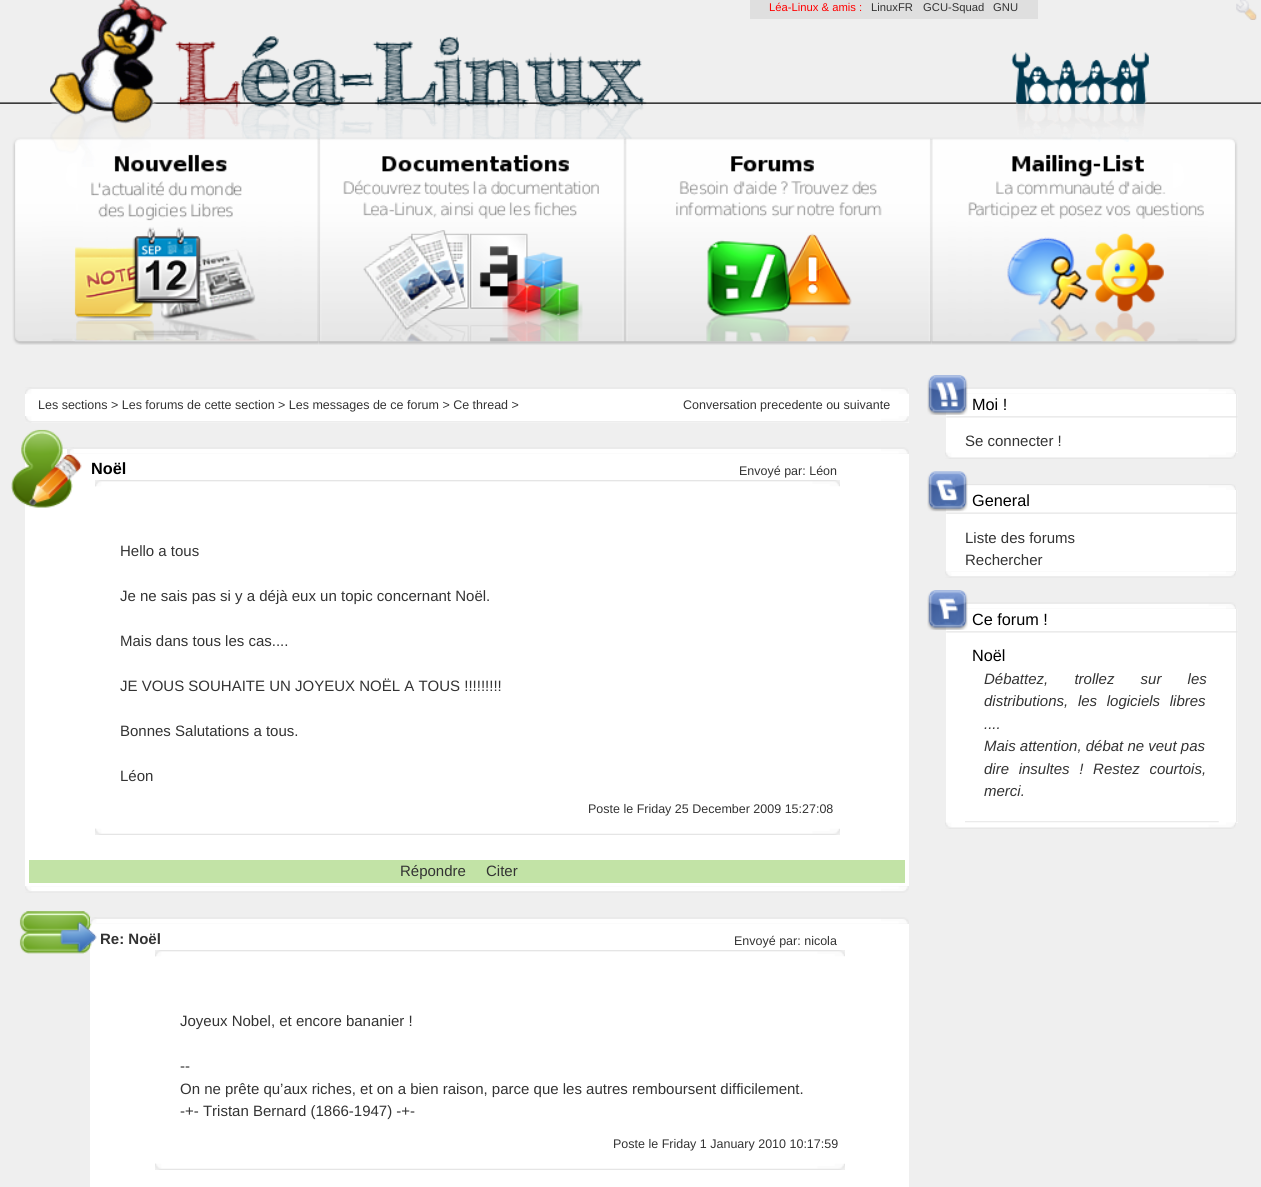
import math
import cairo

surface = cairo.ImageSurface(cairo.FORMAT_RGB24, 1261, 1187)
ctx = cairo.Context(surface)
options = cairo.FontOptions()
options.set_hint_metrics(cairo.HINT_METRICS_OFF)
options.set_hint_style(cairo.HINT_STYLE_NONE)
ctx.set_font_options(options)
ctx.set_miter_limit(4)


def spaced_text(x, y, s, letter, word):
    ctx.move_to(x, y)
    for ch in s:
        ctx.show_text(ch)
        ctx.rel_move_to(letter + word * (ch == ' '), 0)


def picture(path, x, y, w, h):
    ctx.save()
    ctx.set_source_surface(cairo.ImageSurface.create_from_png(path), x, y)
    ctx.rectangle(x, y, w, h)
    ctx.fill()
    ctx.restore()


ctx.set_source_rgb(0.937, 0.937, 0.937)
ctx.paint()
picture("img8.png", 12, 137, 307, 208)
picture("img11.png", 319, 137, 306, 208)
picture("img14.png", 625, 137, 307, 208)
picture("img3.png", 175, 36, 472, 103)
picture("img6.png", 0, 102, 1261, 2)
picture("img9.png", 91, 154, 151, 67)
picture("img7.png", 50, 113, 101, 54)
picture("img1.png", 50, 0, 118, 124)
picture("img2.png", 1236, 0, 21, 20)
picture("img4.png", 1011, 52, 138, 52)
picture("img17.png", 931, 137, 307, 208)
picture("img5.png", 1015, 101, 132, 41)
picture("img10.png", 74, 227, 186, 115)
picture("img12.png", 343, 154, 256, 65)
picture("img13.png", 363, 230, 220, 112)
picture("img15.png", 676, 156, 206, 61)
picture("img16.png", 706, 233, 146, 109)
picture("img18.png", 968, 154, 236, 65)
picture("img19.png", 1007, 233, 157, 109)
ctx.set_source_rgb(0.875, 0.875, 0.875)
ctx.rectangle(750, 0, 288, 19)
ctx.fill()
ctx.select_font_face("Liberation Sans")
ctx.set_font_size(11.25)
ctx.set_source_rgb(1, 0, 0)
ctx.move_to(769, 11)
ctx.show_text("Léa-Linux & amis :")
ctx.set_source_rgb(0.2, 0.2, 0.2)
ctx.move_to(871, 11)
ctx.show_text("LinuxFR")
ctx.move_to(923, 11)
ctx.show_text("GCU-Squad")
ctx.move_to(993, 11)
ctx.show_text("GNU")
ctx.set_source_rgb(1, 1, 1)
ctx.rectangle(25, 388, 884, 35)
ctx.fill()
picture("img20.png", 25, 387, 884, 7)
ctx.set_source_rgb(0.91, 0.91, 0.91)
ctx.rectangle(25, 393, 1, 1)
ctx.fill()
ctx.set_font_size(12.5)
ctx.set_source_rgb(0.2, 0.2, 0.2)
ctx.move_to(38, 409)
ctx.show_text("Les sections > Les forums de cette section > Les messages de ce forum > Ce thread >")
ctx.move_to(683, 409)
ctx.show_text("Conversation precedente ou suivante")
picture("img21.png", 25, 416, 884, 7)
ctx.set_source_rgb(0.91, 0.91, 0.91)
ctx.rectangle(25, 416, 1, 1)
ctx.fill()
picture("img23.png", 61, 447, 848, 7)
ctx.set_source_rgb(1, 1, 1)
ctx.rectangle(25, 454, 884, 432)
ctx.fill()
picture("img22.png", 11, 429, 71, 79)
ctx.set_source_rgb(0.918, 0.918, 0.918)
ctx.rectangle(67, 449, 3, 5)
ctx.fill()
ctx.select_font_face("Liberation Sans", cairo.FONT_SLANT_NORMAL, cairo.FONT_WEIGHT_BOLD)
ctx.set_font_size(16.25)
ctx.set_source_rgb(0, 0, 0)
ctx.move_to(91, 474)
ctx.show_text("Noël")
ctx.select_font_face("Liberation Sans")
ctx.set_font_size(12.5)
ctx.set_source_rgb(0.2, 0.2, 0.2)
ctx.move_to(739, 475)
ctx.show_text("Envoyé par: Léon")
picture("img24.png", 95, 480, 745, 7)
ctx.set_source_rgb(0.957, 0.957, 0.957)
ctx.rectangle(95, 486, 1, 1)
ctx.fill()
ctx.set_font_size(15)
ctx.set_source_rgb(0.2, 0.2, 0.2)
ctx.move_to(120, 556)
ctx.show_text("Hello a tous")
ctx.move_to(120, 601)
ctx.show_text("Je ne sais pas si y a déjà eux un topic concernant Noël.")
ctx.move_to(120, 646)
ctx.show_text("Mais dans tous les cas....")
ctx.move_to(120, 691)
ctx.show_text("JE VOUS SOUHAITE UN JOYEUX NOËL A TOUS !!!!!!!!!")
ctx.move_to(120, 736)
ctx.show_text("Bonnes Salutations a tous.")
ctx.move_to(120, 781)
ctx.show_text("Léon")
ctx.set_font_size(12.5)
ctx.move_to(588, 813)
ctx.show_text("Poste le Friday 25 December 2009 15:27:08")
picture("img25.png", 95, 828, 745, 7)
ctx.set_source_rgb(0.957, 0.957, 0.957)
ctx.rectangle(95, 828, 1, 1)
ctx.fill()
ctx.set_source_rgb(0.761, 0.89, 0.651)
ctx.rectangle(29, 860, 876, 23)
ctx.fill()
ctx.set_font_size(15)
ctx.set_source_rgb(0.2, 0.2, 0.2)
ctx.move_to(400, 876)
ctx.show_text("Répondre")
ctx.move_to(486, 876)
ctx.show_text("Citer")
picture("img26.png", 25, 886, 884, 7)
picture("img28.png", 90, 917, 819, 7)
ctx.set_source_rgb(1, 1, 1)
ctx.rectangle(90, 924, 819, 263)
ctx.fill()
picture("img27.png", 19, 911, 78, 43)
picture("img29.png", 90, 917, 2, 7)
ctx.select_font_face("Liberation Sans", cairo.FONT_SLANT_NORMAL, cairo.FONT_WEIGHT_BOLD)
ctx.set_source_rgb(0.2, 0.2, 0.2)
ctx.move_to(100, 944)
ctx.show_text("Re: Noël")
ctx.select_font_face("Liberation Sans")
ctx.set_font_size(12.5)
ctx.move_to(734, 945)
ctx.show_text("Envoyé par: nicola")
picture("img30.png", 155, 950, 690, 7)
ctx.set_source_rgb(0.957, 0.957, 0.957)
ctx.rectangle(155, 956, 1, 1)
ctx.fill()
ctx.set_font_size(15)
ctx.set_source_rgb(0.2, 0.2, 0.2)
ctx.move_to(180, 1026)
ctx.show_text("Joyeux Nobel, et encore bananier !")
ctx.move_to(180, 1071)
ctx.show_text("--")
ctx.move_to(180, 1094)
ctx.show_text("On ne prête qu’aux riches, et on a bien raison, parce que les autres remboursent difficilement.")
ctx.move_to(180, 1116)
ctx.show_text("-+- Tristan Bernard (1866-1947) -+-")
ctx.set_font_size(12.5)
ctx.move_to(613, 1148)
ctx.show_text("Poste le Friday 1 January 2010 10:17:59")
picture("img31.png", 155, 1163, 690, 7)
ctx.set_source_rgb(0.957, 0.957, 0.957)
ctx.rectangle(155, 1163, 1, 1)
ctx.fill()
picture("img32.png", 964, 387, 272, 7)
ctx.set_source_rgb(1, 1, 1)
ctx.rectangle(946, 394, 292, 59)
ctx.fill()
picture("img33.png", 1236, 394, 2, 59)
picture("img34.png", 927, 375, 41, 40)
ctx.set_font_size(16.25)
ctx.set_source_rgb(0, 0, 0)
ctx.move_to(972, 410)
ctx.show_text("Moi !")
picture("img35.png", 946, 416, 292, 2)
ctx.set_font_size(15)
ctx.set_source_rgb(0.2, 0.2, 0.2)
ctx.move_to(965, 446)
ctx.show_text("Se connecter !")
picture("img36.png", 945, 452, 291, 7)
ctx.set_source_rgb(0.918, 0.918, 0.918)
ctx.rectangle(945, 452, 1, 1)
ctx.fill()
picture("img37.png", 964, 484, 272, 6)
ctx.set_source_rgb(1, 1, 1)
ctx.rectangle(946, 490, 292, 81)
ctx.fill()
picture("img38.png", 1236, 490, 2, 81)
picture("img39.png", 927, 471, 41, 41)
ctx.set_font_size(16.25)
ctx.set_source_rgb(0, 0, 0)
ctx.move_to(972, 506)
ctx.show_text("General")
picture("img40.png", 946, 512, 292, 2)
ctx.set_font_size(15)
ctx.set_source_rgb(0.2, 0.2, 0.2)
ctx.move_to(965, 543)
ctx.show_text("Liste des forums")
ctx.move_to(965, 565)
ctx.show_text("Rechercher")
picture("img41.png", 945, 571, 291, 7)
picture("img32.png", 964, 602, 272, 7)
ctx.set_source_rgb(1, 1, 1)
ctx.rectangle(946, 609, 292, 214)
ctx.fill()
picture("img42.png", 1236, 609, 2, 214)
picture("img43.png", 927, 590, 41, 40)
ctx.set_font_size(16.25)
ctx.set_source_rgb(0, 0, 0)
ctx.move_to(972, 625)
ctx.show_text("Ce forum !")
picture("img35.png", 946, 631, 292, 2)
ctx.move_to(972, 661)
ctx.show_text("Noël")
ctx.select_font_face("Liberation Sans", cairo.FONT_SLANT_ITALIC)
ctx.set_font_size(15)
ctx.set_source_rgb(0.2, 0.2, 0.2)
spaced_text(984, 684, "Débattez, trollez sur les", 0, 22)
spaced_text(984, 706, "distributions, les logiciels libres", 0, 5.5)
ctx.move_to(984, 729)
ctx.show_text("....")
ctx.move_to(984, 751)
ctx.show_text("Mais attention, débat ne veut pas")
spaced_text(984, 774, "dire insultes ! Restez courtois,", 0, 5.5)
ctx.move_to(984, 796)
ctx.show_text("merci.")
picture("img44.png", 965, 821, 254, 2)
picture("img45.png", 945, 822, 291, 7)
ctx.set_source_rgb(0.918, 0.918, 0.918)
ctx.rectangle(945, 822, 1, 1)
ctx.fill()
surface.write_to_png("page.png")
